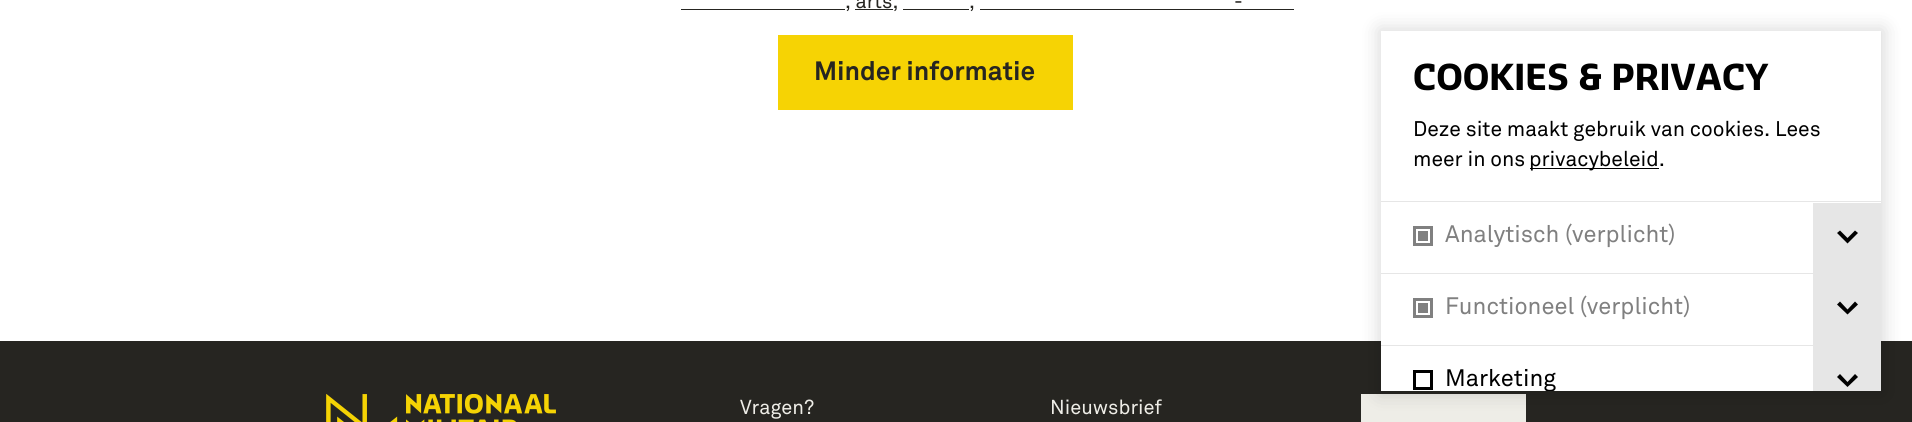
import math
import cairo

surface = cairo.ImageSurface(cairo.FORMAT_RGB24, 1912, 422)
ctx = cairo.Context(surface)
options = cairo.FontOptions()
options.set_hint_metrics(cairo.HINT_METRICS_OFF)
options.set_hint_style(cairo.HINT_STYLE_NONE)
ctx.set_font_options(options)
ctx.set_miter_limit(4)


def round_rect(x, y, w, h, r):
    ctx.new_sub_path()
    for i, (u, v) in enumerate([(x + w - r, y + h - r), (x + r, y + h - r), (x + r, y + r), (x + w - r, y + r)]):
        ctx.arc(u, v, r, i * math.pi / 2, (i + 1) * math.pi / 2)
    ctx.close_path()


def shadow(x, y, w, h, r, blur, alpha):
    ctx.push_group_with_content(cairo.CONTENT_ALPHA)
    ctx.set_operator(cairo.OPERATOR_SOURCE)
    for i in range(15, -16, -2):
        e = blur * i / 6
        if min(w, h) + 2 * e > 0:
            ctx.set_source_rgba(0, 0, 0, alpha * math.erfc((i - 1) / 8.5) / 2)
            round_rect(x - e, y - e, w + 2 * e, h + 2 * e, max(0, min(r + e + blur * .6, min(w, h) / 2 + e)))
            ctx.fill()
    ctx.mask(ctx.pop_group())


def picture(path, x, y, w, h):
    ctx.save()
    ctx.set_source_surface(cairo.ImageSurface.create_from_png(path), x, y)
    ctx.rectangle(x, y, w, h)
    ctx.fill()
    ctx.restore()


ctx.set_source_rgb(1, 1, 1)
ctx.paint()
ctx.select_font_face("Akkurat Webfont")
ctx.set_font_size(20)
ctx.set_source_rgb(0.149, 0.145, 0.129)
ctx.move_to(845, 8)
ctx.show_text(", arts,")
ctx.move_to(1234, 8)
ctx.show_text("-")
ctx.rectangle(980, 9, 314, 1)
ctx.fill()
ctx.rectangle(681, 9, 164, 1)
ctx.fill()
ctx.rectangle(855, 9, 38, 1)
ctx.fill()
ctx.rectangle(903, 9, 66, 1)
ctx.fill()
ctx.move_to(969, 8)
ctx.show_text(",")
ctx.set_source_rgb(0.961, 0.827, 0.016)
ctx.rectangle(778, 35, 295, 75)
ctx.fill()
ctx.select_font_face("Akkurat Webfont", cairo.FONT_SLANT_NORMAL, cairo.FONT_WEIGHT_BOLD)
ctx.set_font_size(26.25)
ctx.set_source_rgb(0.149, 0.145, 0.129)
ctx.move_to(814, 80)
ctx.show_text("Minder informatie")
ctx.rectangle(0, 341, 1912, 81)
ctx.fill()
ctx.set_source_rgb(0.933, 0.929, 0.906)
ctx.rectangle(1361, 394, 165, 28)
ctx.fill()
ctx.set_source_rgb(0, 0, 0)
shadow(1379, 29, 505, 365, 0, 9.5, 0.15)
ctx.set_source_rgb(1, 1, 1)
ctx.rectangle(1381, 31, 500, 360)
ctx.fill()
ctx.select_font_face("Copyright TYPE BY", cairo.FONT_SLANT_NORMAL, cairo.FONT_WEIGHT_BOLD)
ctx.set_font_size(35)
ctx.set_source_rgb(0, 0, 0)
ctx.move_to(1413, 90)
ctx.show_text("COOKIES & PRIVACY")
ctx.select_font_face("Akkurat Webfont")
ctx.set_font_size(21)
ctx.move_to(1413, 136)
ctx.show_text("Deze site maakt gebruik van cookies. Lees")
ctx.move_to(1413, 166)
ctx.show_text("meer in ons")
ctx.rectangle(1530, 168, 129, 1)
ctx.fill()
ctx.move_to(1529, 166)
ctx.show_text("privacybeleid.")
ctx.set_source_rgb(0.902, 0.902, 0.902)
ctx.rectangle(1381, 201, 500, 1)
ctx.fill()
ctx.rectangle(1414.5, 227.5, 17, 17)
ctx.set_source_rgb(0.502, 0.502, 0.502)
ctx.set_line_width(3)
ctx.stroke()
ctx.rectangle(1418, 231, 10, 10)
ctx.fill()
ctx.set_font_size(23.6)
ctx.move_to(1445, 242)
ctx.show_text("Analytisch (verplicht)")
ctx.set_source_rgb(0.902, 0.902, 0.902)
ctx.rectangle(1813, 203, 68, 70)
ctx.fill()
ctx.set_source_rgb(0, 0, 0)
ctx.new_path()
ctx.move_to(1855, 230.5)
ctx.line_to(1858, 233)
ctx.line_to(1847.5, 243.5)
ctx.line_to(1837, 233)
ctx.line_to(1840, 230.5)
ctx.line_to(1847.5, 238)
ctx.close_path()
ctx.fill()
ctx.set_source_rgb(0.902, 0.902, 0.902)
ctx.rectangle(1381, 273, 500, 1)
ctx.fill()
ctx.rectangle(1414.5, 299.5, 17, 17)
ctx.set_source_rgb(0.502, 0.502, 0.502)
ctx.stroke()
ctx.rectangle(1418, 303, 10, 10)
ctx.fill()
ctx.move_to(1445, 314)
ctx.show_text("Functioneel (verplicht)")
ctx.set_source_rgb(0.902, 0.902, 0.902)
ctx.rectangle(1813, 274, 68, 71)
ctx.fill()
ctx.set_source_rgb(0, 0, 0)
ctx.new_path()
ctx.move_to(1855, 301.5)
ctx.line_to(1858, 304.5)
ctx.line_to(1847.5, 314.5)
ctx.line_to(1837, 304.5)
ctx.line_to(1840, 301.5)
ctx.line_to(1847.5, 309.5)
ctx.close_path()
ctx.fill()
ctx.set_source_rgb(0.902, 0.902, 0.902)
ctx.rectangle(1381, 345, 500, 1)
ctx.fill()
ctx.rectangle(1414.5, 371.5, 17, 17)
ctx.set_source_rgb(0, 0, 0)
ctx.stroke()
ctx.save()
ctx.rectangle(1381, 31, 500, 360)
ctx.clip()
ctx.move_to(1445, 386)
ctx.show_text("Marketing")
ctx.restore()
ctx.set_source_rgb(0.902, 0.902, 0.902)
ctx.rectangle(1813, 346, 68, 45)
ctx.fill()
ctx.set_source_rgb(0, 0, 0)
ctx.new_path()
ctx.move_to(1855, 374)
ctx.line_to(1858, 377)
ctx.line_to(1847.5, 387)
ctx.line_to(1837, 377)
ctx.line_to(1840, 374)
ctx.line_to(1847.5, 382)
ctx.close_path()
ctx.fill()
picture("img1.png", 326, 394, 230, 28)
ctx.set_font_size(20)
ctx.set_source_rgb(0.933, 0.929, 0.906)
ctx.move_to(740, 414)
ctx.show_text("Vragen?")
ctx.move_to(1050, 414)
ctx.show_text("Nieuwsbrief")
surface.write_to_png("page.png")
